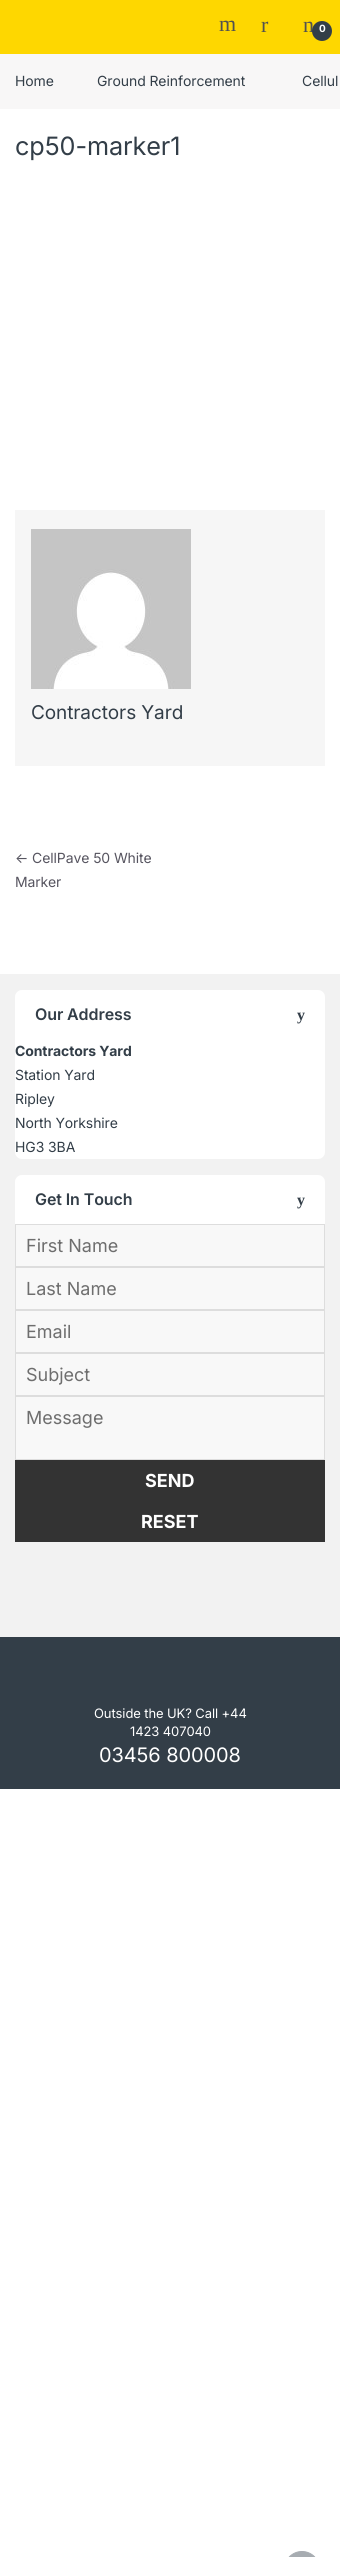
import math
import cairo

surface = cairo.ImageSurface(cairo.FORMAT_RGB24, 340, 2557)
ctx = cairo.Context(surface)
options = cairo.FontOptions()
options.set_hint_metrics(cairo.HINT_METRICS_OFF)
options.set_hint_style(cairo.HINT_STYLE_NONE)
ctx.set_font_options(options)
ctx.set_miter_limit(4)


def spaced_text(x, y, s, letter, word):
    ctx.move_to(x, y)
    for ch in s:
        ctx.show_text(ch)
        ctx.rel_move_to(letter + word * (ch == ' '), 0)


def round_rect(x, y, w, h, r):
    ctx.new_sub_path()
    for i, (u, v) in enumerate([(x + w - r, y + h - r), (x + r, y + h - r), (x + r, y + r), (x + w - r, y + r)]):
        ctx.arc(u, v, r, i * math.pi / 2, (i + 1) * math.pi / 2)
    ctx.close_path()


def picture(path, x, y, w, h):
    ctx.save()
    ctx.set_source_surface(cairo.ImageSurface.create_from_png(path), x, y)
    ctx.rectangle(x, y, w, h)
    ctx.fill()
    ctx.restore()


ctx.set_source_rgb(1, 1, 1)
ctx.paint()
ctx.set_source_rgb(0.996, 0.843, 0)
ctx.rectangle(0, 0, 340, 54)
ctx.fill()
ctx.select_font_face("Liberation Serif")
ctx.set_font_size(22)
ctx.set_source_rgb(0.318, 0.318, 0.318)
spaced_text(219, 31, "m", -0.1, 0)
spaced_text(261, 32, "r", -0.1, 0)
spaced_text(303, 32, "n", -0.1, 0)
ctx.set_source_rgb(0.2, 0.243, 0.282)
ctx.new_path()
ctx.arc(322, 31, 10, 0, 2 * math.pi)
ctx.fill()
ctx.select_font_face("Inter", cairo.FONT_SLANT_NORMAL, cairo.FONT_WEIGHT_BOLD)
ctx.set_font_size(10)
ctx.set_source_rgb(1, 1, 1)
spaced_text(319, 32, "0", -0.1, 0)
ctx.set_source_rgb(0.969, 0.965, 0.965)
ctx.rectangle(0, 54, 340, 55)
ctx.fill()
ctx.select_font_face("Inter")
ctx.set_font_size(14)
ctx.set_source_rgb(0.2, 0.243, 0.282)
spaced_text(15, 86, "Home", -0.1, 0)
spaced_text(97, 86, "Ground Reinforcement", -0.1, 0)
spaced_text(302, 86, "Cellul", -0.1, 0)
ctx.set_font_size(25.25)
spaced_text(15, 155, "cp50-marker1", -0.1, 0)
ctx.set_source_rgb(0.961, 0.961, 0.961)
ctx.rectangle(15, 510, 310, 256)
ctx.fill()
picture("img1.png", 31, 529, 160, 160)
ctx.set_font_size(19)
ctx.set_source_rgb(0.2, 0.243, 0.282)
spaced_text(31, 719, "Contractors Yard", -0.1, 0)
ctx.set_font_size(14)
ctx.set_source_rgb(0.341, 0.333, 0.376)
spaced_text(15, 863, "← CellPave 50 White", -0.1, 0)
spaced_text(15, 887, "Marker", -0.1, 0)
ctx.set_source_rgb(0.949, 0.949, 0.949)
ctx.rectangle(0, 974, 340, 663)
ctx.fill()
ctx.set_source_rgb(1, 1, 1)
round_rect(15, 990, 310, 169, 7)
ctx.fill()
ctx.select_font_face("Inter SemiBold")
ctx.set_font_size(16)
ctx.set_source_rgb(0.2, 0.243, 0.282)
spaced_text(35, 1020, "Our Address", -0.1, 0)
ctx.select_font_face("Liberation Serif", cairo.FONT_SLANT_NORMAL, cairo.FONT_WEIGHT_BOLD)
spaced_text(297, 1020, "y", -0.1, 0)
ctx.select_font_face("Inter", cairo.FONT_SLANT_NORMAL, cairo.FONT_WEIGHT_BOLD)
ctx.set_font_size(14)
spaced_text(15, 1056, "Contractors Yard", -0.1, 0)
ctx.select_font_face("Inter")
spaced_text(15, 1080, "Station Yard", -0.1, 0)
spaced_text(15, 1104, "Ripley", -0.1, 0)
spaced_text(15, 1128, "North Yorkshire", -0.1, 0)
spaced_text(15, 1152, "HG3 3BA", -0.1, 0)
ctx.set_source_rgb(1, 1, 1)
round_rect(15, 1175, 310, 367, 7)
ctx.fill()
ctx.select_font_face("Inter SemiBold")
ctx.set_font_size(16)
ctx.set_source_rgb(0.2, 0.243, 0.282)
spaced_text(35, 1205, "Get In Touch", -0.1, 0)
ctx.select_font_face("Liberation Serif", cairo.FONT_SLANT_NORMAL, cairo.FONT_WEIGHT_BOLD)
spaced_text(297, 1205, "y", -0.1, 0)
ctx.set_source_rgb(0.969, 0.969, 0.969)
ctx.rectangle(15.5, 1224.5, 309, 42)
ctx.fill_preserve()
ctx.set_source_rgb(0.867, 0.867, 0.867)
ctx.set_line_width(1)
ctx.stroke()
ctx.select_font_face("Inter")
ctx.set_font_size(18)
ctx.set_source_rgb(0.431, 0.431, 0.431)
ctx.move_to(26, 1252)
ctx.show_text("First Name")
ctx.set_source_rgb(0.969, 0.969, 0.969)
ctx.rectangle(15.5, 1267.5, 309, 42)
ctx.fill_preserve()
ctx.set_source_rgb(0.867, 0.867, 0.867)
ctx.stroke()
ctx.set_source_rgb(0.431, 0.431, 0.431)
ctx.move_to(26, 1295)
ctx.show_text("Last Name")
ctx.set_source_rgb(0.969, 0.969, 0.969)
ctx.rectangle(15.5, 1310.5, 309, 42)
ctx.fill_preserve()
ctx.set_source_rgb(0.867, 0.867, 0.867)
ctx.stroke()
ctx.set_source_rgb(0.431, 0.431, 0.431)
ctx.move_to(26, 1338)
ctx.show_text("Email")
ctx.set_source_rgb(0.969, 0.969, 0.969)
ctx.rectangle(15.5, 1353.5, 309, 42)
ctx.fill_preserve()
ctx.set_source_rgb(0.867, 0.867, 0.867)
ctx.stroke()
ctx.set_source_rgb(0.431, 0.431, 0.431)
ctx.move_to(26, 1381)
ctx.show_text("Subject")
ctx.set_source_rgb(0.969, 0.969, 0.969)
ctx.rectangle(15.5, 1396.5, 309, 63)
ctx.fill_preserve()
ctx.set_source_rgb(0.867, 0.867, 0.867)
ctx.stroke()
ctx.set_source_rgb(0.431, 0.431, 0.431)
ctx.move_to(26, 1424)
ctx.show_text("Message")
ctx.set_source_rgb(0.2, 0.2, 0.2)
ctx.rectangle(15, 1460, 310, 82)
ctx.fill()
ctx.select_font_face("Inter", cairo.FONT_SLANT_NORMAL, cairo.FONT_WEIGHT_BOLD)
ctx.set_source_rgb(1, 1, 1)
ctx.move_to(145, 1487)
ctx.show_text("SEND")
ctx.move_to(141, 1528)
ctx.show_text("RESET")
ctx.set_source_rgb(0.2, 0.243, 0.282)
ctx.rectangle(0, 1637, 340, 152)
ctx.fill()
ctx.select_font_face("Inter")
ctx.set_font_size(13)
ctx.set_source_rgb(1, 1, 1)
spaced_text(94, 1718, "Outside the UK? Call +44", -0.1, 0)
spaced_text(130, 1736, "1423 407040", -0.1, 0)
ctx.set_font_size(20)
spaced_text(99, 1762, "03456 800008", -0.1, 0)
ctx.set_source_rgb(0.655, 0.675, 0.694)
round_rect(284.5, 2551.5, 35, 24, 17.5)
ctx.fill_preserve()
ctx.stroke()
surface.write_to_png("page.png")
